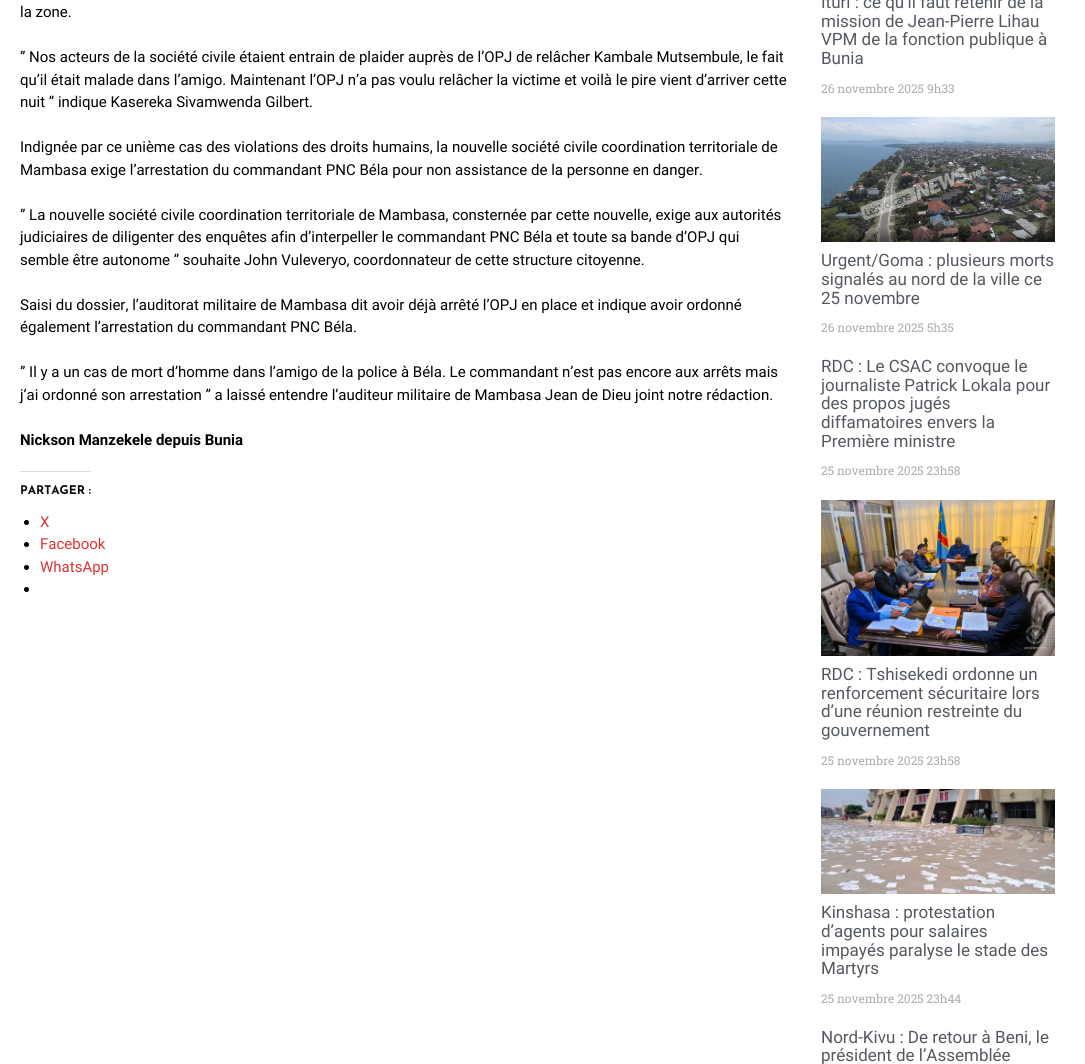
import math
import cairo

surface = cairo.ImageSurface(cairo.FORMAT_RGB24, 1085, 1064)
ctx = cairo.Context(surface)
options = cairo.FontOptions()
options.set_hint_metrics(cairo.HINT_METRICS_OFF)
options.set_hint_style(cairo.HINT_STYLE_NONE)
ctx.set_font_options(options)
ctx.set_miter_limit(4)


def picture(path, x, y, w, h):
    ctx.save()
    ctx.set_source_surface(cairo.ImageSurface.create_from_png(path), x, y)
    ctx.rectangle(x, y, w, h)
    ctx.fill()
    ctx.restore()


ctx.set_source_rgb(1, 1, 1)
ctx.paint()
ctx.select_font_face("Roboto")
ctx.set_font_size(15)
ctx.set_source_rgb(0, 0, 0)
ctx.move_to(20, 17)
ctx.show_text("la zone.")
ctx.move_to(20, 62)
ctx.show_text("” Nos acteurs de la société civile étaient entrain de plaider auprès de l’OPJ de relâcher Kambale Mutsembule, le fait")
ctx.move_to(20, 85)
ctx.show_text("qu’il était malade dans l’amigo. Maintenant l’OPJ n’a pas voulu relâcher la victime et voilà le pire vient d’arriver cette")
ctx.move_to(20, 107)
ctx.show_text("nuit ” indique Kasereka Sivamwenda Gilbert.")
ctx.move_to(20, 152)
ctx.show_text("Indignée par ce unième cas des violations des droits humains, la nouvelle société civile coordination territoriale de")
ctx.move_to(20, 175)
ctx.show_text("Mambasa exige l’arrestation du commandant PNC Béla pour non assistance de la personne en danger.")
ctx.move_to(20, 220)
ctx.show_text("” La nouvelle société civile coordination territoriale de Mambasa, consternée par cette nouvelle, exige aux autorités")
ctx.move_to(20, 242)
ctx.show_text("judiciaires de diligenter des enquêtes afin d’interpeller le commandant PNC Béla et toute sa bande d’OPJ qui")
ctx.move_to(20, 265)
ctx.show_text("semble être autonome ” souhaite John Vuleveryo, coordonnateur de cette structure citoyenne.")
ctx.move_to(20, 310)
ctx.show_text("Saisi du dossier, l’auditorat militaire de Mambasa dit avoir déjà arrêté l’OPJ en place et indique avoir ordonné")
ctx.move_to(20, 332)
ctx.show_text("également l’arrestation du commandant PNC Béla.")
ctx.move_to(20, 377)
ctx.show_text("” Il y a un cas de mort d’homme dans l’amigo de la police à Béla. Le commandant n’est pas encore aux arrêts mais")
ctx.move_to(20, 400)
ctx.show_text("j’ai ordonné son arrestation ” a laissé entendre l’auditeur militaire de Mambasa Jean de Dieu joint notre rédaction.")
ctx.select_font_face("Roboto", cairo.FONT_SLANT_NORMAL, cairo.FONT_WEIGHT_BOLD)
ctx.move_to(20, 445)
ctx.show_text("Nickson Manzekele depuis Bunia")
ctx.set_source_rgb(0.863, 0.863, 0.871)
ctx.rectangle(20, 471, 71, 1)
ctx.fill()
ctx.select_font_face("Josefin Sans", cairo.FONT_SLANT_NORMAL, cairo.FONT_WEIGHT_BOLD)
ctx.set_font_size(12)
ctx.set_source_rgb(0.059, 0.051, 0.055)
ctx.move_to(20, 494)
ctx.show_text("PARTAGER :")
ctx.set_source_rgb(0, 0, 0)
ctx.new_path()
ctx.arc(26.5, 522.5, 2.5, 0, 2 * math.pi)
ctx.fill()
ctx.select_font_face("Roboto")
ctx.set_font_size(15)
ctx.set_source_rgb(0.867, 0.2, 0.2)
ctx.move_to(40, 527)
ctx.show_text("X")
ctx.set_source_rgb(0, 0, 0)
ctx.new_path()
ctx.arc(26.5, 544.5, 2.5, 0, 2 * math.pi)
ctx.fill()
ctx.set_source_rgb(0.867, 0.2, 0.2)
ctx.move_to(40, 549)
ctx.show_text("Facebook")
ctx.set_source_rgb(0, 0, 0)
ctx.new_path()
ctx.arc(26.5, 567.5, 2.5, 0, 2 * math.pi)
ctx.fill()
ctx.set_source_rgb(0.867, 0.2, 0.2)
ctx.move_to(40, 572)
ctx.show_text("WhatsApp")
ctx.set_source_rgb(0, 0, 0)
ctx.new_path()
ctx.arc(26.5, 589.5, 2.5, 0, 2 * math.pi)
ctx.fill()
ctx.set_font_size(17)
ctx.set_source_rgb(0.329, 0.349, 0.373)
ctx.move_to(821, 8)
ctx.show_text("Ituri : ce qu’il faut retenir de la")
ctx.move_to(821, 27)
ctx.show_text("mission de Jean-Pierre Lihau")
ctx.move_to(821, 45)
ctx.show_text("VPM de la fonction publique à")
ctx.move_to(821, 64)
ctx.show_text("Bunia")
ctx.select_font_face("Roboto Slab")
ctx.set_font_size(12)
ctx.set_source_rgb(0.678, 0.678, 0.678)
ctx.move_to(821, 93)
ctx.show_text("26 novembre 2025 9h33")
picture("img1.png", 821, 117, 234, 125)
ctx.select_font_face("Roboto")
ctx.set_font_size(17)
ctx.set_source_rgb(0.329, 0.349, 0.373)
ctx.move_to(821, 266)
ctx.show_text("Urgent/Goma : plusieurs morts")
ctx.move_to(821, 285)
ctx.show_text("signalés au nord de la ville ce")
ctx.move_to(821, 304)
ctx.show_text("25 novembre")
ctx.select_font_face("Roboto Slab")
ctx.set_font_size(12)
ctx.set_source_rgb(0.678, 0.678, 0.678)
ctx.move_to(821, 332)
ctx.show_text("26 novembre 2025 5h35")
ctx.select_font_face("Roboto")
ctx.set_font_size(17)
ctx.set_source_rgb(0.329, 0.349, 0.373)
ctx.move_to(821, 372)
ctx.show_text("RDC : Le CSAC convoque le")
ctx.move_to(821, 391)
ctx.show_text("journaliste Patrick Lokala pour")
ctx.move_to(821, 409)
ctx.show_text("des propos jugés")
ctx.move_to(821, 428)
ctx.show_text("diffamatoires envers la")
ctx.move_to(821, 447)
ctx.show_text("Première ministre")
ctx.select_font_face("Roboto Slab")
ctx.set_font_size(12)
ctx.set_source_rgb(0.678, 0.678, 0.678)
ctx.move_to(821, 475)
ctx.show_text("25 novembre 2025 23h58")
picture("img2.png", 821, 500, 234, 156)
ctx.select_font_face("Roboto")
ctx.set_font_size(17)
ctx.set_source_rgb(0.329, 0.349, 0.373)
ctx.move_to(821, 680)
ctx.show_text("RDC : Tshisekedi ordonne un")
ctx.move_to(821, 699)
ctx.show_text("renforcement sécuritaire lors")
ctx.move_to(821, 717)
ctx.show_text("d’une réunion restreinte du")
ctx.move_to(821, 736)
ctx.show_text("gouvernement")
ctx.select_font_face("Roboto Slab")
ctx.set_font_size(12)
ctx.set_source_rgb(0.678, 0.678, 0.678)
ctx.move_to(821, 765)
ctx.show_text("25 novembre 2025 23h58")
picture("img3.png", 821, 789, 234, 105)
ctx.select_font_face("Roboto")
ctx.set_font_size(17)
ctx.set_source_rgb(0.329, 0.349, 0.373)
ctx.move_to(821, 918)
ctx.show_text("Kinshasa : protestation")
ctx.move_to(821, 937)
ctx.show_text("d’agents pour salaires")
ctx.move_to(821, 956)
ctx.show_text("impayés paralyse le stade des")
ctx.move_to(821, 974)
ctx.show_text("Martyrs")
ctx.select_font_face("Roboto Slab")
ctx.set_font_size(12)
ctx.set_source_rgb(0.678, 0.678, 0.678)
ctx.move_to(821, 1003)
ctx.show_text("25 novembre 2025 23h44")
ctx.select_font_face("Roboto")
ctx.set_font_size(17)
ctx.set_source_rgb(0.329, 0.349, 0.373)
ctx.move_to(821, 1043)
ctx.show_text("Nord-Kivu : De retour à Beni, le")
ctx.move_to(821, 1061)
ctx.show_text("président de l’Assemblée")
surface.write_to_png("page.png")
